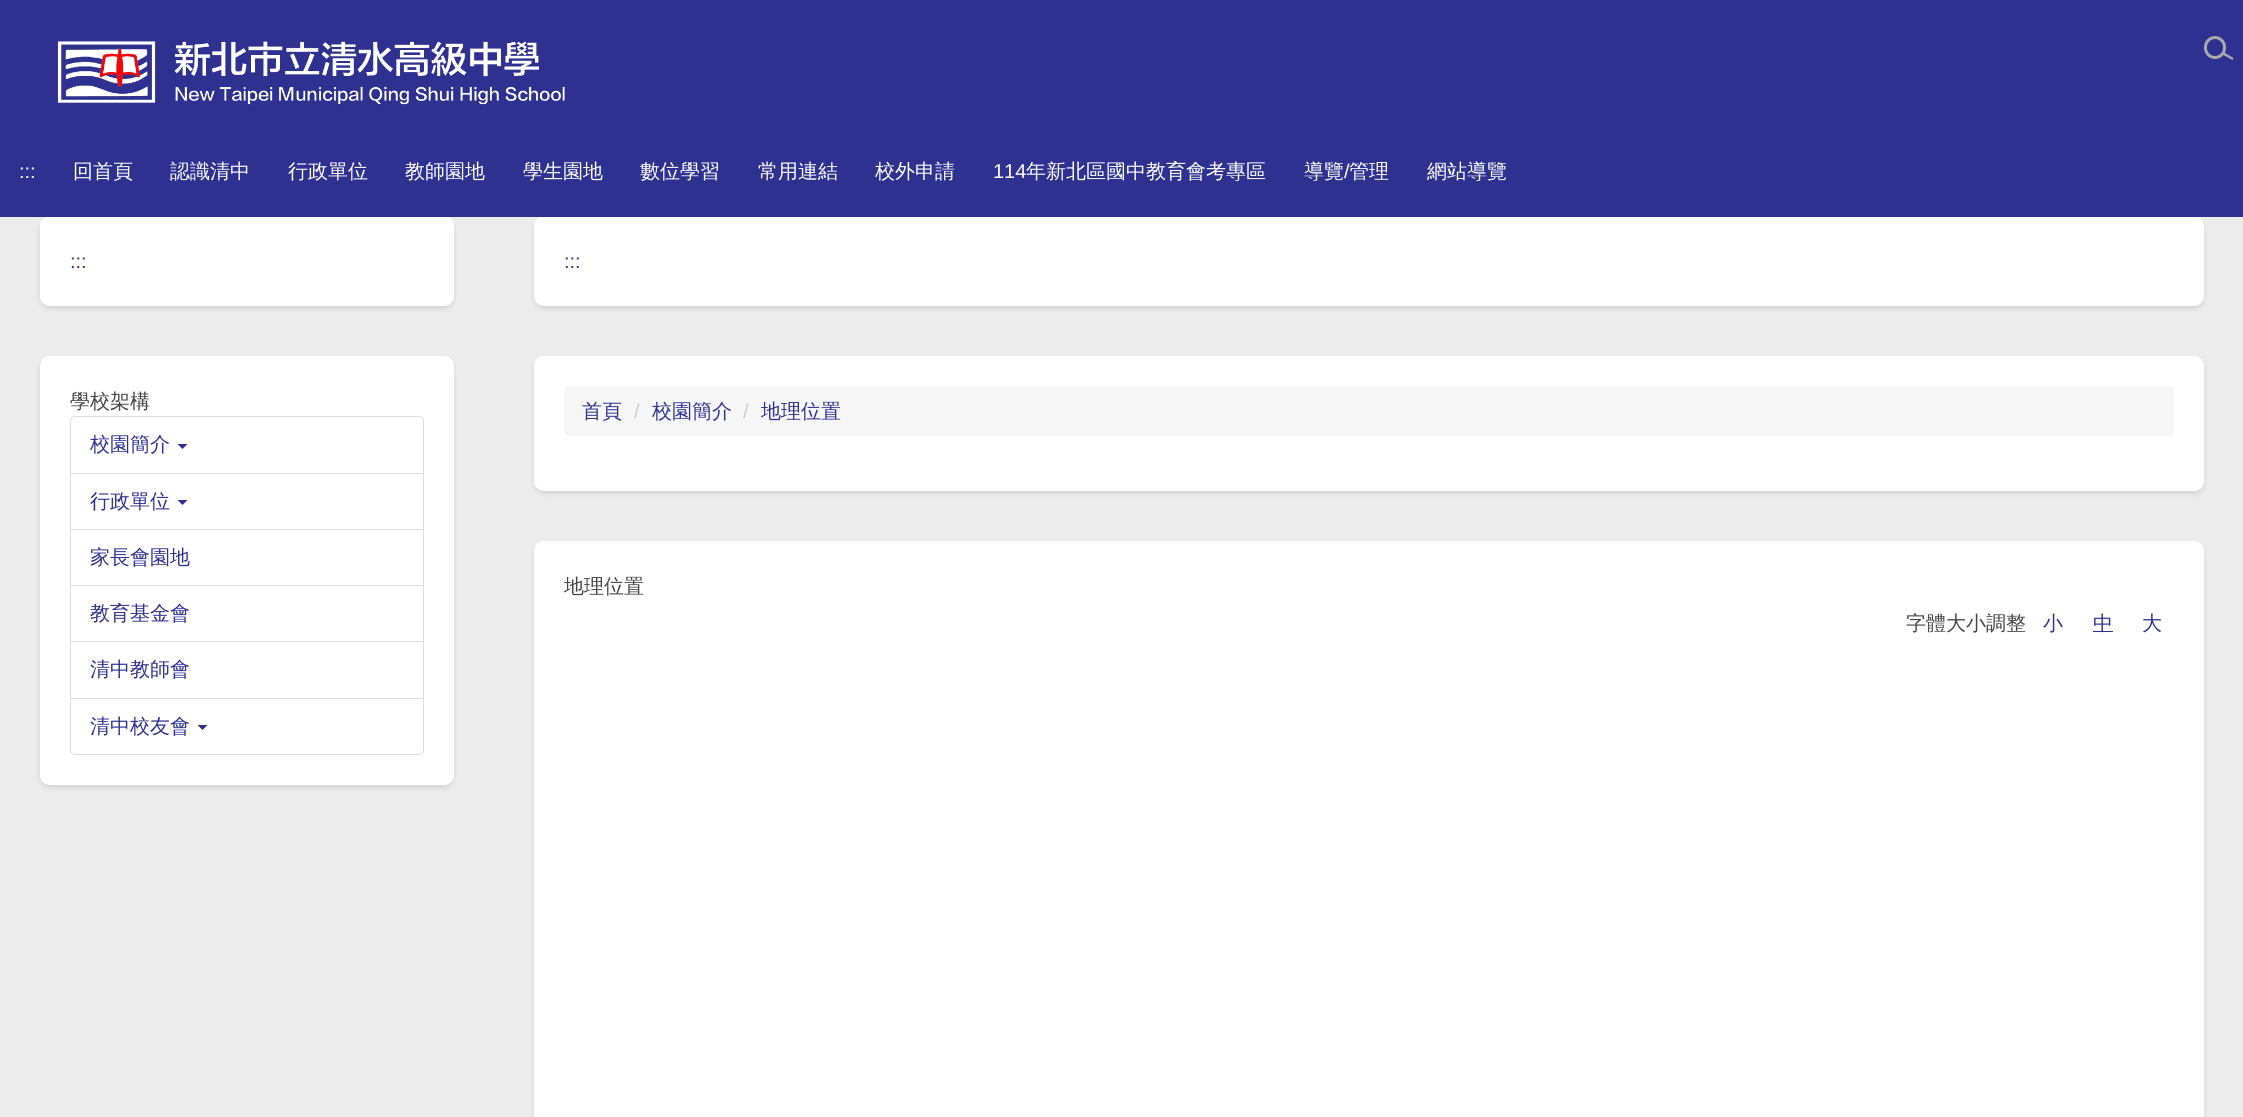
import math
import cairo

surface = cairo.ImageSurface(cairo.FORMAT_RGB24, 2243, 1117)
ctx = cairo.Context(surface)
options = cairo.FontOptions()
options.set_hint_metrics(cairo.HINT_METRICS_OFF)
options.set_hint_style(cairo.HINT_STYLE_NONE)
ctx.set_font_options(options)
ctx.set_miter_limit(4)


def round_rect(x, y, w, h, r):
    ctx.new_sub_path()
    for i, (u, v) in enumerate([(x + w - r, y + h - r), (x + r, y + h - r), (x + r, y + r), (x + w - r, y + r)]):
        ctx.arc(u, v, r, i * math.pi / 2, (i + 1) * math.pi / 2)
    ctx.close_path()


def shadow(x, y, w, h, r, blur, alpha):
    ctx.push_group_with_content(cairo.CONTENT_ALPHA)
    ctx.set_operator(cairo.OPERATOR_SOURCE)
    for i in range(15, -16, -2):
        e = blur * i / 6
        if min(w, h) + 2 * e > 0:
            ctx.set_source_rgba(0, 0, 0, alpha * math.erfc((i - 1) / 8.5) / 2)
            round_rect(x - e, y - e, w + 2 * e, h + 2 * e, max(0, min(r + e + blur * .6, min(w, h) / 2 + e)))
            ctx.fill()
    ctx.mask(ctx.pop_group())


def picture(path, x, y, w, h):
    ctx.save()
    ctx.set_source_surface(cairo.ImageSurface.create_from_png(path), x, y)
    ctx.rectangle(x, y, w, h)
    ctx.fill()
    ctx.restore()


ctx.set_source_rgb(0.922, 0.922, 0.922)
ctx.paint()
ctx.set_source_rgb(0, 0, 0)
shadow(40, 219, 414, 90, 10, 2.5, 0.1)
ctx.set_source_rgb(1, 1, 1)
round_rect(40, 216, 414, 90, 10)
ctx.fill()
ctx.set_source_rgb(0, 0, 0)
shadow(534, 219, 1670, 90, 10, 2.5, 0.1)
ctx.set_source_rgb(1, 1, 1)
round_rect(534, 216, 1670, 90, 10)
ctx.fill()
ctx.set_source_rgb(0.184, 0.192, 0.569)
ctx.rectangle(0, 0, 2243, 217)
ctx.fill()
picture("img1.png", 57, 41, 508, 64)
round_rect(2205.5, 37.5, 19, 20, 9.5)
ctx.set_source_rgb(0.667, 0.667, 0.667)
ctx.set_line_width(3)
ctx.stroke()
ctx.new_path()
ctx.move_to(2224, 52.5)
ctx.line_to(2233.5, 58)
ctx.line_to(2232.5, 60)
ctx.line_to(2222.5, 54.5)
ctx.close_path()
ctx.fill()
ctx.select_font_face("Liberation Sans")
ctx.set_font_size(20)
ctx.set_source_rgb(1, 1, 1)
ctx.move_to(19, 178)
ctx.show_text(":::")
ctx.select_font_face("WenQuanYi Zen Hei Medium")
ctx.move_to(73, 178)
ctx.show_text("回首頁")
ctx.move_to(170, 178)
ctx.show_text("認識清中")
ctx.move_to(288, 178)
ctx.show_text("行政單位")
ctx.move_to(405, 178)
ctx.show_text("教師園地")
ctx.move_to(523, 178)
ctx.show_text("學生園地")
ctx.move_to(640, 178)
ctx.show_text("數位學習")
ctx.move_to(758, 178)
ctx.show_text("常用連結")
ctx.move_to(875, 178)
ctx.show_text("校外申請")
ctx.select_font_face("Liberation Sans")
ctx.move_to(993, 178)
ctx.show_text("114")
ctx.select_font_face("WenQuanYi Zen Hei Medium")
ctx.move_to(1026, 178)
ctx.show_text("年新北區國中教育會考專區")
ctx.move_to(1304, 178)
ctx.show_text("導覽")
ctx.select_font_face("Liberation Sans")
ctx.move_to(1344, 178)
ctx.show_text("/")
ctx.select_font_face("WenQuanYi Zen Hei Medium")
ctx.move_to(1349, 178)
ctx.show_text("管理")
ctx.move_to(1427, 178)
ctx.show_text("網站導覽")
ctx.select_font_face("Liberation Sans")
ctx.set_source_rgb(0.184, 0.192, 0.569)
ctx.move_to(70, 268)
ctx.show_text(":::")
ctx.set_source_rgb(0, 0, 0)
shadow(40, 359, 414, 429, 10, 2.5, 0.1)
ctx.set_source_rgb(1, 1, 1)
round_rect(40, 356, 414, 429, 10)
ctx.fill()
ctx.select_font_face("WenQuanYi Zen Hei Medium")
ctx.set_source_rgb(0.267, 0.267, 0.267)
ctx.move_to(70, 408)
ctx.show_text("學校架構")
ctx.new_path()
ctx.move_to(75, 416.5)
ctx.line_to(419, 416.5)
ctx.curve_to(421.5, 416.5, 423.5, 418.5, 423.5, 421)
ctx.line_to(423.5, 473.5)
ctx.line_to(70.5, 473.5)
ctx.line_to(70.5, 421)
ctx.curve_to(70.5, 418.5, 72.5, 416.5, 75, 416.5)
ctx.close_path()
ctx.set_source_rgb(0.867, 0.867, 0.867)
ctx.set_line_width(1)
ctx.stroke()
ctx.set_source_rgb(0.184, 0.192, 0.569)
ctx.move_to(90, 451)
ctx.show_text("校園簡介")
ctx.new_path()
ctx.move_to(177.5, 444)
ctx.line_to(187.5, 444)
ctx.line_to(182.5, 449)
ctx.close_path()
ctx.fill()
ctx.rectangle(70.5, 473.5, 353, 56)
ctx.set_source_rgb(0.867, 0.867, 0.867)
ctx.stroke()
ctx.set_source_rgb(0.184, 0.192, 0.569)
ctx.move_to(90, 508)
ctx.show_text("行政單位")
ctx.new_path()
ctx.move_to(177.5, 500)
ctx.line_to(187.5, 500)
ctx.line_to(182.5, 505)
ctx.close_path()
ctx.fill()
ctx.rectangle(70.5, 529.5, 353, 56)
ctx.set_source_rgb(0.867, 0.867, 0.867)
ctx.stroke()
ctx.set_source_rgb(0.184, 0.192, 0.569)
ctx.move_to(90, 564)
ctx.show_text("家長會園地")
ctx.rectangle(70.5, 585.5, 353, 57)
ctx.set_source_rgb(0.867, 0.867, 0.867)
ctx.stroke()
ctx.set_source_rgb(0.184, 0.192, 0.569)
ctx.move_to(90, 620)
ctx.show_text("教育基金會")
ctx.set_source_rgb(1, 1, 1)
ctx.rectangle(71, 642, 352, 1)
ctx.fill()
ctx.rectangle(70.5, 641.5, 353, 57)
ctx.set_source_rgb(0.867, 0.867, 0.867)
ctx.stroke()
ctx.set_source_rgb(0.184, 0.192, 0.569)
ctx.move_to(90, 676)
ctx.show_text("清中教師會")
ctx.set_source_rgb(1, 1, 1)
ctx.new_path()
ctx.move_to(70.5, 698.5)
ctx.line_to(423.5, 698.5)
ctx.line_to(423.5, 750)
ctx.curve_to(423.5, 752.5, 421.5, 754.5, 419, 754.5)
ctx.line_to(75, 754.5)
ctx.curve_to(72.5, 754.5, 70.5, 752.5, 70.5, 750)
ctx.close_path()
ctx.fill_preserve()
ctx.set_source_rgb(0.867, 0.867, 0.867)
ctx.stroke()
ctx.set_source_rgb(0.184, 0.192, 0.569)
ctx.move_to(90, 733)
ctx.show_text("清中校友會")
ctx.new_path()
ctx.move_to(197.5, 725)
ctx.line_to(207.5, 725)
ctx.line_to(202.5, 730)
ctx.close_path()
ctx.fill()
ctx.select_font_face("Liberation Sans")
ctx.move_to(564, 268)
ctx.show_text(":::")
ctx.set_source_rgb(0, 0, 0)
shadow(534, 359, 1670, 135, 10, 2.5, 0.1)
ctx.set_source_rgb(1, 1, 1)
round_rect(534, 356, 1670, 135, 10)
ctx.fill()
ctx.set_source_rgb(0.961, 0.961, 0.961)
round_rect(564, 386, 1610, 50, 5)
ctx.fill()
ctx.select_font_face("WenQuanYi Zen Hei Medium")
ctx.set_source_rgb(0.184, 0.192, 0.569)
ctx.move_to(582, 418)
ctx.show_text("首頁")
ctx.select_font_face("Liberation Sans")
ctx.set_source_rgb(0.8, 0.8, 0.8)
ctx.move_to(634, 418)
ctx.show_text("/")
ctx.select_font_face("WenQuanYi Zen Hei Medium")
ctx.set_source_rgb(0.184, 0.192, 0.569)
ctx.move_to(652, 418)
ctx.show_text("校園簡介")
ctx.select_font_face("Liberation Sans")
ctx.set_source_rgb(0.8, 0.8, 0.8)
ctx.move_to(743, 418)
ctx.show_text("/")
ctx.select_font_face("WenQuanYi Zen Hei Medium")
ctx.set_source_rgb(0.184, 0.192, 0.569)
ctx.move_to(761, 418)
ctx.show_text("地理位置")
ctx.set_source_rgb(0, 0, 0)
shadow(534, 544, 1670, 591, 10, 2.5, 0.1)
ctx.set_source_rgb(1, 1, 1)
round_rect(534, 541, 1670, 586, 10)
ctx.fill()
ctx.set_source_rgb(0.267, 0.267, 0.267)
ctx.move_to(564, 593)
ctx.show_text("地理位置")
ctx.move_to(1906, 630)
ctx.show_text("字體大小調整")
ctx.set_source_rgb(0.184, 0.192, 0.569)
ctx.move_to(2043, 630)
ctx.show_text("小")
ctx.rectangle(2093, 631, 20, 1)
ctx.fill()
ctx.move_to(2093, 630)
ctx.show_text("中")
ctx.move_to(2142, 630)
ctx.show_text("大")
surface.write_to_png("page.png")
